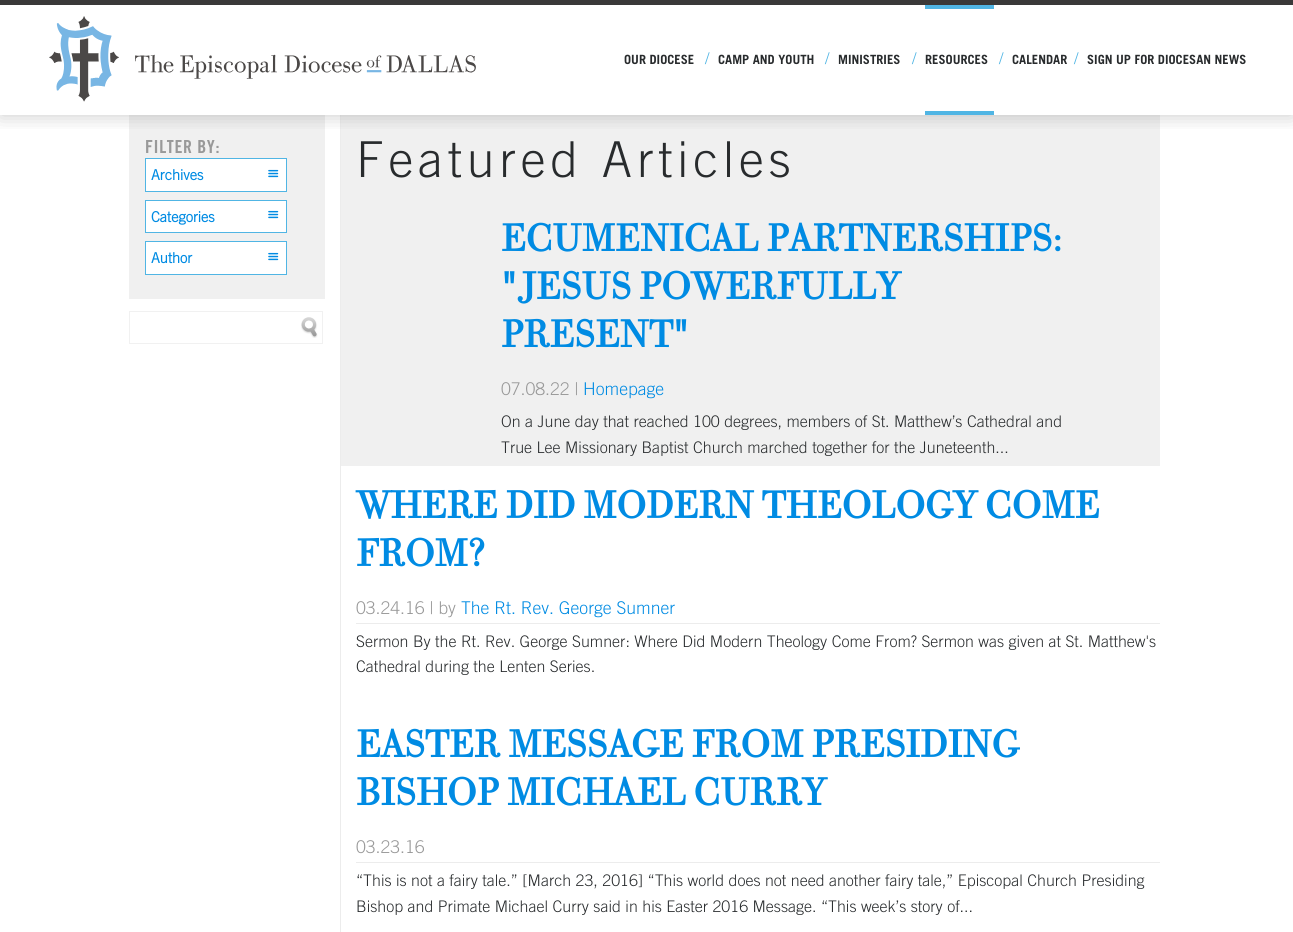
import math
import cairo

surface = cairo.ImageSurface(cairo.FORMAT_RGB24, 1293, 932)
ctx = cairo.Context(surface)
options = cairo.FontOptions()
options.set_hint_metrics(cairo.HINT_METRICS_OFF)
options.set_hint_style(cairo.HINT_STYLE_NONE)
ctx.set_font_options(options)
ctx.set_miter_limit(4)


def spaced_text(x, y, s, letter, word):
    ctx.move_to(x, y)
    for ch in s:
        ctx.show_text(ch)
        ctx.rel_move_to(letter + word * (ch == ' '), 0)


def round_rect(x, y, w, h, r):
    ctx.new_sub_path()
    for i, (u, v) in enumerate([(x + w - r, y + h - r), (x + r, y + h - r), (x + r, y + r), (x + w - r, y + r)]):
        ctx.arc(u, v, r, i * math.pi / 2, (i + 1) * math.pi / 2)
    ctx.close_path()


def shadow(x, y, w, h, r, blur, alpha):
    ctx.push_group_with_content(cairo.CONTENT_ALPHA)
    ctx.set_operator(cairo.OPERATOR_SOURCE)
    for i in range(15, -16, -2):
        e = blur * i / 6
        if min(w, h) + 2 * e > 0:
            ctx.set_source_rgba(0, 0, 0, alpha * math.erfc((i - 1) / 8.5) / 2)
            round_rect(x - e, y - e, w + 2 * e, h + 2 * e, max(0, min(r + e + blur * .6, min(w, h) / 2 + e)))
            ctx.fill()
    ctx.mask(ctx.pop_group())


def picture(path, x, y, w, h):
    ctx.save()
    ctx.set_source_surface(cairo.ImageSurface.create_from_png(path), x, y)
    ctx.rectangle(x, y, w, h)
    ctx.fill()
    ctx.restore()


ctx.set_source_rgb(1, 1, 1)
ctx.paint()
ctx.set_source_rgb(0.941, 0.941, 0.941)
ctx.rectangle(129, 115, 196, 184)
ctx.fill()
ctx.set_source_rgb(0.922, 0.922, 0.922)
ctx.rectangle(340, 115, 1, 817)
ctx.fill()
ctx.set_source_rgb(0.941, 0.941, 0.941)
ctx.rectangle(341, 115, 819, 351)
ctx.fill()
ctx.save()
ctx.rectangle(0, 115, 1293, 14)
ctx.clip()
ctx.set_source_rgb(0.153, 0.153, 0.153)
shadow(0, 0, 1293, 115, 0, 10, 0.25)
ctx.restore()
ctx.set_source_rgb(0.227, 0.224, 0.224)
ctx.rectangle(0, 0, 1293, 5)
ctx.fill()
picture("img1.png", 49, 16, 427, 86)
ctx.select_font_face("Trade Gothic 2", cairo.FONT_SLANT_NORMAL, cairo.FONT_WEIGHT_BOLD)
ctx.set_font_size(12.75)
ctx.set_source_rgb(0.157, 0.169, 0.176)
ctx.move_to(624, 64)
ctx.show_text("OUR DIOCESE")
ctx.select_font_face("Trade Gothic Light")
ctx.set_font_size(16)
ctx.set_source_rgb(0.314, 0.71, 0.894)
ctx.move_to(705, 64)
ctx.show_text("/")
ctx.select_font_face("Trade Gothic 2", cairo.FONT_SLANT_NORMAL, cairo.FONT_WEIGHT_BOLD)
ctx.set_font_size(12.75)
ctx.set_source_rgb(0.157, 0.169, 0.176)
ctx.move_to(718, 64)
ctx.show_text("CAMP AND YOUTH")
ctx.select_font_face("Trade Gothic Light")
ctx.set_font_size(16)
ctx.set_source_rgb(0.314, 0.71, 0.894)
ctx.move_to(825, 64)
ctx.show_text("/")
ctx.select_font_face("Trade Gothic 2", cairo.FONT_SLANT_NORMAL, cairo.FONT_WEIGHT_BOLD)
ctx.set_font_size(12.75)
ctx.set_source_rgb(0.157, 0.169, 0.176)
ctx.move_to(838, 64)
ctx.show_text("MINISTRIES")
ctx.select_font_face("Trade Gothic Light")
ctx.set_font_size(16)
ctx.set_source_rgb(0.314, 0.71, 0.894)
ctx.move_to(912, 64)
ctx.show_text("/")
ctx.rectangle(925, 5, 69, 4)
ctx.fill()
ctx.rectangle(925, 111, 69, 4)
ctx.fill()
ctx.select_font_face("Trade Gothic 2", cairo.FONT_SLANT_NORMAL, cairo.FONT_WEIGHT_BOLD)
ctx.set_font_size(12.75)
ctx.set_source_rgb(0.157, 0.169, 0.176)
ctx.move_to(925, 64)
ctx.show_text("RESOURCES")
ctx.select_font_face("Trade Gothic Light")
ctx.set_font_size(16)
ctx.set_source_rgb(0.314, 0.71, 0.894)
ctx.move_to(999, 64)
ctx.show_text("/")
ctx.select_font_face("Trade Gothic 2", cairo.FONT_SLANT_NORMAL, cairo.FONT_WEIGHT_BOLD)
ctx.set_font_size(12.75)
ctx.set_source_rgb(0.157, 0.169, 0.176)
ctx.move_to(1012, 64)
ctx.show_text("CALENDAR")
ctx.select_font_face("Trade Gothic Light")
ctx.set_font_size(16)
ctx.set_source_rgb(0.314, 0.71, 0.894)
ctx.move_to(1074, 64)
ctx.show_text("/")
ctx.select_font_face("Trade Gothic 2", cairo.FONT_SLANT_NORMAL, cairo.FONT_WEIGHT_BOLD)
ctx.set_font_size(12.75)
ctx.set_source_rgb(0.157, 0.169, 0.176)
ctx.move_to(1087, 64)
ctx.show_text("SIGN UP FOR DIOCESAN NEWS")
ctx.select_font_face("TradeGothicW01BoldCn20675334", cairo.FONT_SLANT_NORMAL, cairo.FONT_WEIGHT_BOLD)
ctx.set_font_size(18)
ctx.set_source_rgb(0.6, 0.6, 0.6)
spaced_text(145, 153, "FILTER BY:", 0.6, 0)
ctx.set_source_rgb(1, 1, 1)
ctx.rectangle(145.5, 158.5, 141, 33)
ctx.fill_preserve()
ctx.set_source_rgb(0.314, 0.71, 0.894)
ctx.set_line_width(1)
ctx.stroke()
ctx.select_font_face("Trade Gothic", cairo.FONT_SLANT_NORMAL, cairo.FONT_WEIGHT_BOLD)
ctx.set_font_size(14.5)
ctx.set_source_rgb(0, 0.545, 0.89)
ctx.move_to(151, 180)
ctx.show_text("Archives")
picture("img2.png", 268, 169, 11, 9)
ctx.set_source_rgb(1, 1, 1)
ctx.rectangle(145.5, 200.5, 141, 32)
ctx.fill_preserve()
ctx.set_source_rgb(0.314, 0.71, 0.894)
ctx.stroke()
ctx.set_source_rgb(0, 0.545, 0.89)
ctx.move_to(151, 222)
ctx.show_text("Categories")
picture("img2.png", 268, 210, 11, 9)
ctx.set_source_rgb(1, 1, 1)
ctx.rectangle(145.5, 241.5, 141, 33)
ctx.fill_preserve()
ctx.set_source_rgb(0.314, 0.71, 0.894)
ctx.stroke()
ctx.set_source_rgb(0, 0.545, 0.89)
ctx.move_to(151, 263)
ctx.show_text("Author")
picture("img2.png", 268, 252, 11, 9)
ctx.rectangle(129.5, 311.5, 193, 32)
ctx.set_source_rgb(0.945, 0.945, 0.945)
ctx.stroke()
picture("img3.png", 301, 317, 17, 21)
ctx.select_font_face("Trade Gothic Light")
ctx.set_font_size(49.5)
ctx.set_source_rgb(0.157, 0.169, 0.176)
spaced_text(356, 177, "Featured Articles", 5, 0)
ctx.select_font_face("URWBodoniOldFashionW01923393", cairo.FONT_SLANT_NORMAL, cairo.FONT_WEIGHT_BOLD)
ctx.set_font_size(40)
ctx.set_source_rgb(0, 0.545, 0.89)
ctx.move_to(501, 251)
ctx.show_text("ECUMENICAL PARTNERSHIPS:")
ctx.move_to(501, 299)
ctx.show_text("\"JESUS POWERFULLY")
ctx.move_to(501, 347)
ctx.show_text("PRESENT\"")
ctx.select_font_face("Trade Gothic Light")
ctx.set_font_size(17.6)
ctx.set_source_rgb(0.6, 0.6, 0.6)
ctx.move_to(501, 395)
ctx.show_text("07.08.22 |")
ctx.set_source_rgb(0, 0.545, 0.89)
ctx.move_to(583, 395)
ctx.show_text("Homepage")
ctx.set_font_size(16)
ctx.set_source_rgb(0.157, 0.169, 0.176)
ctx.move_to(501, 427)
ctx.show_text("On a June day that reached 100 degrees, members of St. Matthew’s Cathedral and")
ctx.move_to(501, 453)
ctx.show_text("True Lee Missionary Baptist Church marched together for the Juneteenth...")
ctx.select_font_face("URWBodoniOldFashionW01923393", cairo.FONT_SLANT_NORMAL, cairo.FONT_WEIGHT_BOLD)
ctx.set_font_size(40)
ctx.set_source_rgb(0, 0.545, 0.89)
ctx.move_to(356, 518)
ctx.show_text("WHERE DID MODERN THEOLOGY COME")
ctx.move_to(356, 566)
ctx.show_text("FROM?")
ctx.set_source_rgb(0.922, 0.922, 0.922)
ctx.rectangle(356, 623, 804, 1)
ctx.fill()
ctx.select_font_face("Trade Gothic Light")
ctx.set_font_size(17.6)
ctx.set_source_rgb(0.6, 0.6, 0.6)
ctx.move_to(356, 614)
ctx.show_text("03.24.16 | by")
ctx.set_source_rgb(0, 0.545, 0.89)
ctx.move_to(461, 614)
ctx.show_text("The Rt. Rev. George Sumner")
ctx.set_font_size(16)
ctx.set_source_rgb(0.157, 0.169, 0.176)
ctx.move_to(356, 647)
ctx.show_text("Sermon By the Rt. Rev. George Sumner: Where Did Modern Theology Come From? Sermon was given at St. Matthew's")
ctx.move_to(356, 672)
ctx.show_text("Cathedral during the Lenten Series.")
ctx.select_font_face("URWBodoniOldFashionW01923393", cairo.FONT_SLANT_NORMAL, cairo.FONT_WEIGHT_BOLD)
ctx.set_font_size(40)
ctx.set_source_rgb(0, 0.545, 0.89)
ctx.move_to(356, 757)
ctx.show_text("EASTER MESSAGE FROM PRESIDING")
ctx.move_to(356, 805)
ctx.show_text("BISHOP MICHAEL CURRY")
ctx.set_source_rgb(0.922, 0.922, 0.922)
ctx.rectangle(356, 862, 804, 1)
ctx.fill()
ctx.select_font_face("Trade Gothic Light")
ctx.set_font_size(17.6)
ctx.set_source_rgb(0.6, 0.6, 0.6)
ctx.move_to(356, 853)
ctx.show_text("03.23.16")
ctx.set_font_size(16)
ctx.set_source_rgb(0.157, 0.169, 0.176)
ctx.move_to(356, 886)
ctx.show_text("“This is not a fairy tale.” [March 23, 2016] “This world does not need another fairy tale,” Episcopal Church Presiding")
ctx.move_to(356, 912)
ctx.show_text("Bishop and Primate Michael Curry said in his Easter 2016 Message. “This week’s story of...")
surface.write_to_png("page.png")
